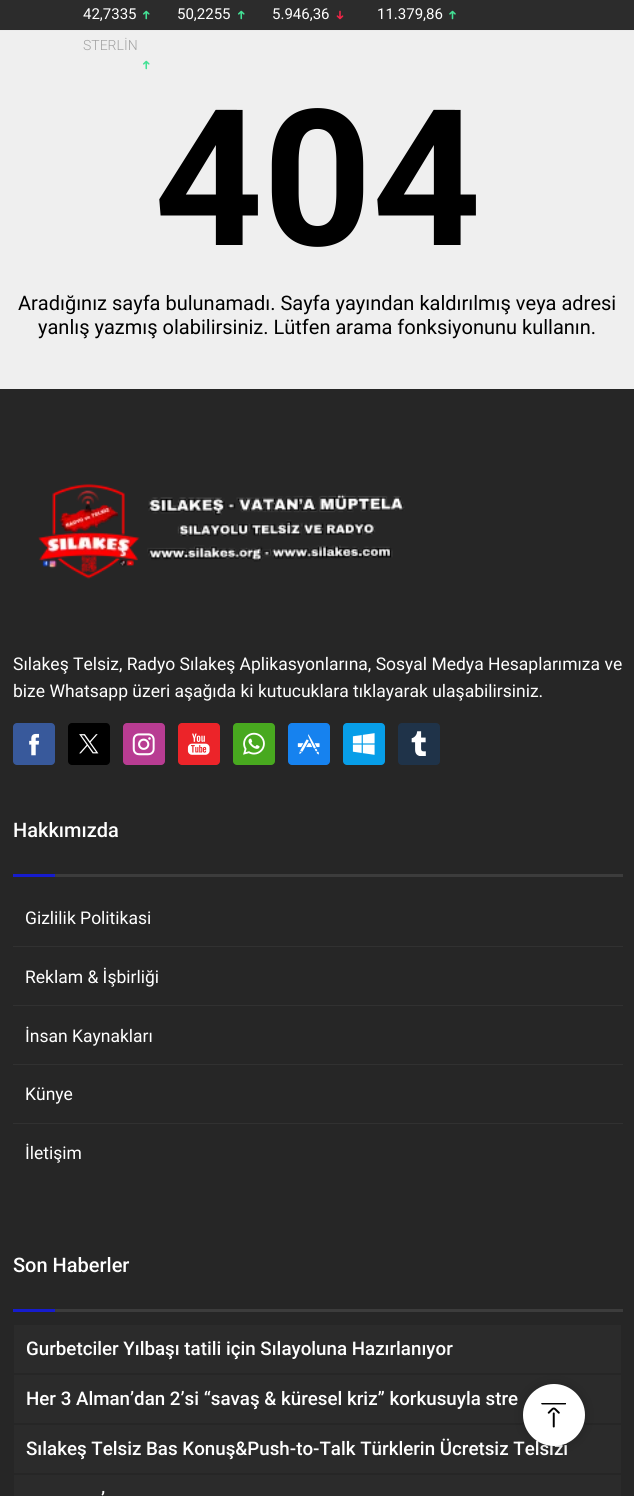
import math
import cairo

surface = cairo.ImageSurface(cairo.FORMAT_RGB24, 634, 1496)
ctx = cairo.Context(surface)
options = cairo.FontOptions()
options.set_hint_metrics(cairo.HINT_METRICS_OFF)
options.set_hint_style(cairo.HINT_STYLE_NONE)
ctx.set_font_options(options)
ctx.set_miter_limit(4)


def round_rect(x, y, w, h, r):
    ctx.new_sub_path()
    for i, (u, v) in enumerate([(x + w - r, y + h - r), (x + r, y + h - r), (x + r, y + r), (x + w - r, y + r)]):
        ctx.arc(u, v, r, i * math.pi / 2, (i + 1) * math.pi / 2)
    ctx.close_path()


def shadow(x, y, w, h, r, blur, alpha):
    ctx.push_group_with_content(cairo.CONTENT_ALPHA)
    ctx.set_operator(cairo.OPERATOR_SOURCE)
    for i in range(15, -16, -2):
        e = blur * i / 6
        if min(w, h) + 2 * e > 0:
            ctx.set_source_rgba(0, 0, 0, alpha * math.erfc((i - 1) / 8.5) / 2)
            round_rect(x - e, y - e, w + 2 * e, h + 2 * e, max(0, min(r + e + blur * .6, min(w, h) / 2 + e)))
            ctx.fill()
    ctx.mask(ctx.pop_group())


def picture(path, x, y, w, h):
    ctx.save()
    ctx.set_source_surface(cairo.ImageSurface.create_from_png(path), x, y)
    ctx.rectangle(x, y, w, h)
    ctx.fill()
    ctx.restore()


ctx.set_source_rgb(0.937, 0.937, 0.937)
ctx.paint()
ctx.set_source_rgb(0.918, 0.918, 0.918)
ctx.rectangle(0, 30, 634, 1)
ctx.fill()
ctx.set_source_rgb(0.173, 0.173, 0.173)
ctx.rectangle(0, 0, 634, 30)
ctx.fill()
ctx.select_font_face("Roboto")
ctx.set_font_size(15)
ctx.set_source_rgb(1, 1, 1)
ctx.move_to(83, 19)
ctx.show_text("42,7335")
picture("img1.png", 143, 10, 7, 10)
ctx.move_to(177, 19)
ctx.show_text("50,2255")
picture("img1.png", 238, 10, 7, 10)
ctx.move_to(272, 19)
ctx.show_text("5.946,36")
picture("img2.png", 336, 10, 8, 10)
ctx.move_to(377, 19)
ctx.show_text("11.379,86")
picture("img3.png", 449, 10, 7, 10)
ctx.select_font_face("Roboto Light")
ctx.set_font_size(14)
ctx.set_source_rgb(0.635, 0.635, 0.635)
ctx.move_to(83, 50)
ctx.show_text("STERLİN")
picture("img4.png", 143, 60, 7, 10)
ctx.select_font_face("Roboto", cairo.FONT_SLANT_NORMAL, cairo.FONT_WEIGHT_BOLD)
ctx.set_font_size(190)
ctx.set_source_rgb(0, 0, 0)
ctx.move_to(154, 245)
ctx.show_text("404")
ctx.select_font_face("Roboto")
ctx.set_font_size(20)
ctx.move_to(18, 310)
ctx.show_text("Aradığınız sayfa bulunamadı. Sayfa yayından kaldırılmış veya adresi")
ctx.move_to(38, 334)
ctx.show_text("yanlış yazmış olabilirsiniz. Lütfen arama fonksiyonunu kullanın.")
ctx.set_source_rgb(0.149, 0.149, 0.149)
ctx.rectangle(0, 389, 634, 1107)
ctx.fill()
picture("img5.png", 38, 483, 367, 96)
ctx.set_font_size(17.5)
ctx.set_source_rgb(1, 1, 1)
ctx.move_to(13, 670)
ctx.show_text("Sılakeş Telsiz, Radyo Sılakeş Aplikasyonlarına, Sosyal Medya Hesaplarımıza ve")
ctx.move_to(13, 697)
ctx.show_text("bize Whatsapp üzeri aşağıda ki kutucuklara tıklayarak ulaşabilirsiniz.")
ctx.set_source_rgb(0.22, 0.349, 0.608)
round_rect(13, 723, 42, 42, 4)
ctx.fill()
picture("img6.png", 29, 733, 11, 23)
ctx.set_source_rgb(0, 0, 0)
round_rect(68, 723, 42, 42, 4)
ctx.fill()
picture("img7.png", 79, 734, 20, 20)
ctx.set_source_rgb(0.722, 0.235, 0.573)
round_rect(123, 723, 42, 42, 4)
ctx.fill()
picture("img8.png", 132, 733, 23, 23)
ctx.set_source_rgb(0.922, 0.141, 0.161)
round_rect(178, 723, 42, 42, 4)
ctx.fill()
picture("img9.png", 187, 733, 23, 22)
ctx.set_source_rgb(0.282, 0.663, 0.122)
round_rect(233, 723, 42, 42, 4)
ctx.fill()
picture("img10.png", 243, 732, 22, 23)
ctx.set_source_rgb(0.086, 0.51, 0.937)
round_rect(288, 723, 42, 42, 4)
ctx.fill()
picture("img11.png", 297, 734, 23, 21)
ctx.set_source_rgb(0.031, 0.62, 0.91)
round_rect(343, 723, 42, 42, 4)
ctx.fill()
picture("img12.png", 352, 733, 23, 22)
ctx.set_source_rgb(0.122, 0.2, 0.286)
round_rect(398, 723, 42, 42, 4)
ctx.fill()
picture("img13.png", 411, 731, 15, 25)
ctx.set_source_rgb(0.235, 0.235, 0.235)
ctx.rectangle(55, 874, 568, 3)
ctx.fill()
ctx.select_font_face("Roboto Medium")
ctx.set_font_size(20)
ctx.set_source_rgb(1, 1, 1)
ctx.move_to(13, 837)
ctx.show_text("Hakkımızda")
ctx.set_source_rgb(0.086, 0.11, 0.808)
ctx.rectangle(13, 874, 42, 3)
ctx.fill()
ctx.select_font_face("Roboto")
ctx.set_font_size(17.5)
ctx.set_source_rgb(1, 1, 1)
ctx.move_to(25, 924)
ctx.show_text("Gizlilik Politikasi")
ctx.set_source_rgb(0.192, 0.192, 0.192)
ctx.rectangle(13, 946, 610, 1)
ctx.fill()
ctx.set_source_rgb(1, 1, 1)
ctx.move_to(25, 983)
ctx.show_text("Reklam & İşbirliği")
ctx.set_source_rgb(0.192, 0.192, 0.192)
ctx.rectangle(13, 1005, 610, 1)
ctx.fill()
ctx.set_source_rgb(1, 1, 1)
ctx.move_to(25, 1042)
ctx.show_text("İnsan Kaynakları")
ctx.set_source_rgb(0.192, 0.192, 0.192)
ctx.rectangle(13, 1064, 610, 1)
ctx.fill()
ctx.set_source_rgb(1, 1, 1)
ctx.move_to(25, 1100)
ctx.show_text("Künye")
ctx.set_source_rgb(0.192, 0.192, 0.192)
ctx.rectangle(13, 1123, 610, 1)
ctx.fill()
ctx.set_source_rgb(1, 1, 1)
ctx.move_to(25, 1159)
ctx.show_text("İletişim")
ctx.set_source_rgb(0.235, 0.235, 0.235)
ctx.rectangle(55, 1309, 568, 3)
ctx.fill()
ctx.select_font_face("Roboto Medium")
ctx.set_font_size(20)
ctx.set_source_rgb(1, 1, 1)
ctx.move_to(13, 1272)
ctx.show_text("Son Haberler")
ctx.set_source_rgb(0.086, 0.11, 0.808)
ctx.rectangle(13, 1309, 42, 3)
ctx.fill()
ctx.set_source_rgb(0.169, 0.169, 0.169)
ctx.rectangle(14, 1325, 607, 48)
ctx.fill()
ctx.set_font_size(18.75)
ctx.set_source_rgb(1, 1, 1)
ctx.move_to(26, 1355)
ctx.show_text("Gurbetciler Yılbaşı tatili için Sılayoluna Hazırlanıyor")
ctx.set_source_rgb(0.169, 0.169, 0.169)
ctx.rectangle(14, 1375, 607, 48)
ctx.fill()
ctx.set_source_rgb(1, 1, 1)
ctx.move_to(26, 1405)
ctx.show_text("Her 3 Alman’dan 2’si “savaş & küresel kriz” korkusuyla stre")
ctx.set_source_rgb(0.169, 0.169, 0.169)
ctx.rectangle(14, 1425, 607, 48)
ctx.fill()
ctx.set_source_rgb(1, 1, 1)
ctx.move_to(26, 1455)
ctx.show_text("Sılakeş Telsiz Bas Konuş&Push-to-Talk Türklerin Ücretsiz Telsizi")
ctx.set_source_rgb(0.169, 0.169, 0.169)
ctx.rectangle(14, 1475, 607, 21)
ctx.fill()
ctx.set_source_rgb(1, 1, 1)
ctx.move_to(101, 1505)
ctx.show_text("’")
ctx.set_source_rgb(0, 0, 0)
shadow(523, 1384, 62, 62, 31, 6, 0.2)
ctx.set_source_rgb(1, 1, 1)
ctx.arc(554, 1415, 31, 0, 2 * math.pi)
ctx.fill()
picture("img14.png", 541, 1403, 25, 25)
surface.write_to_png("page.png")
